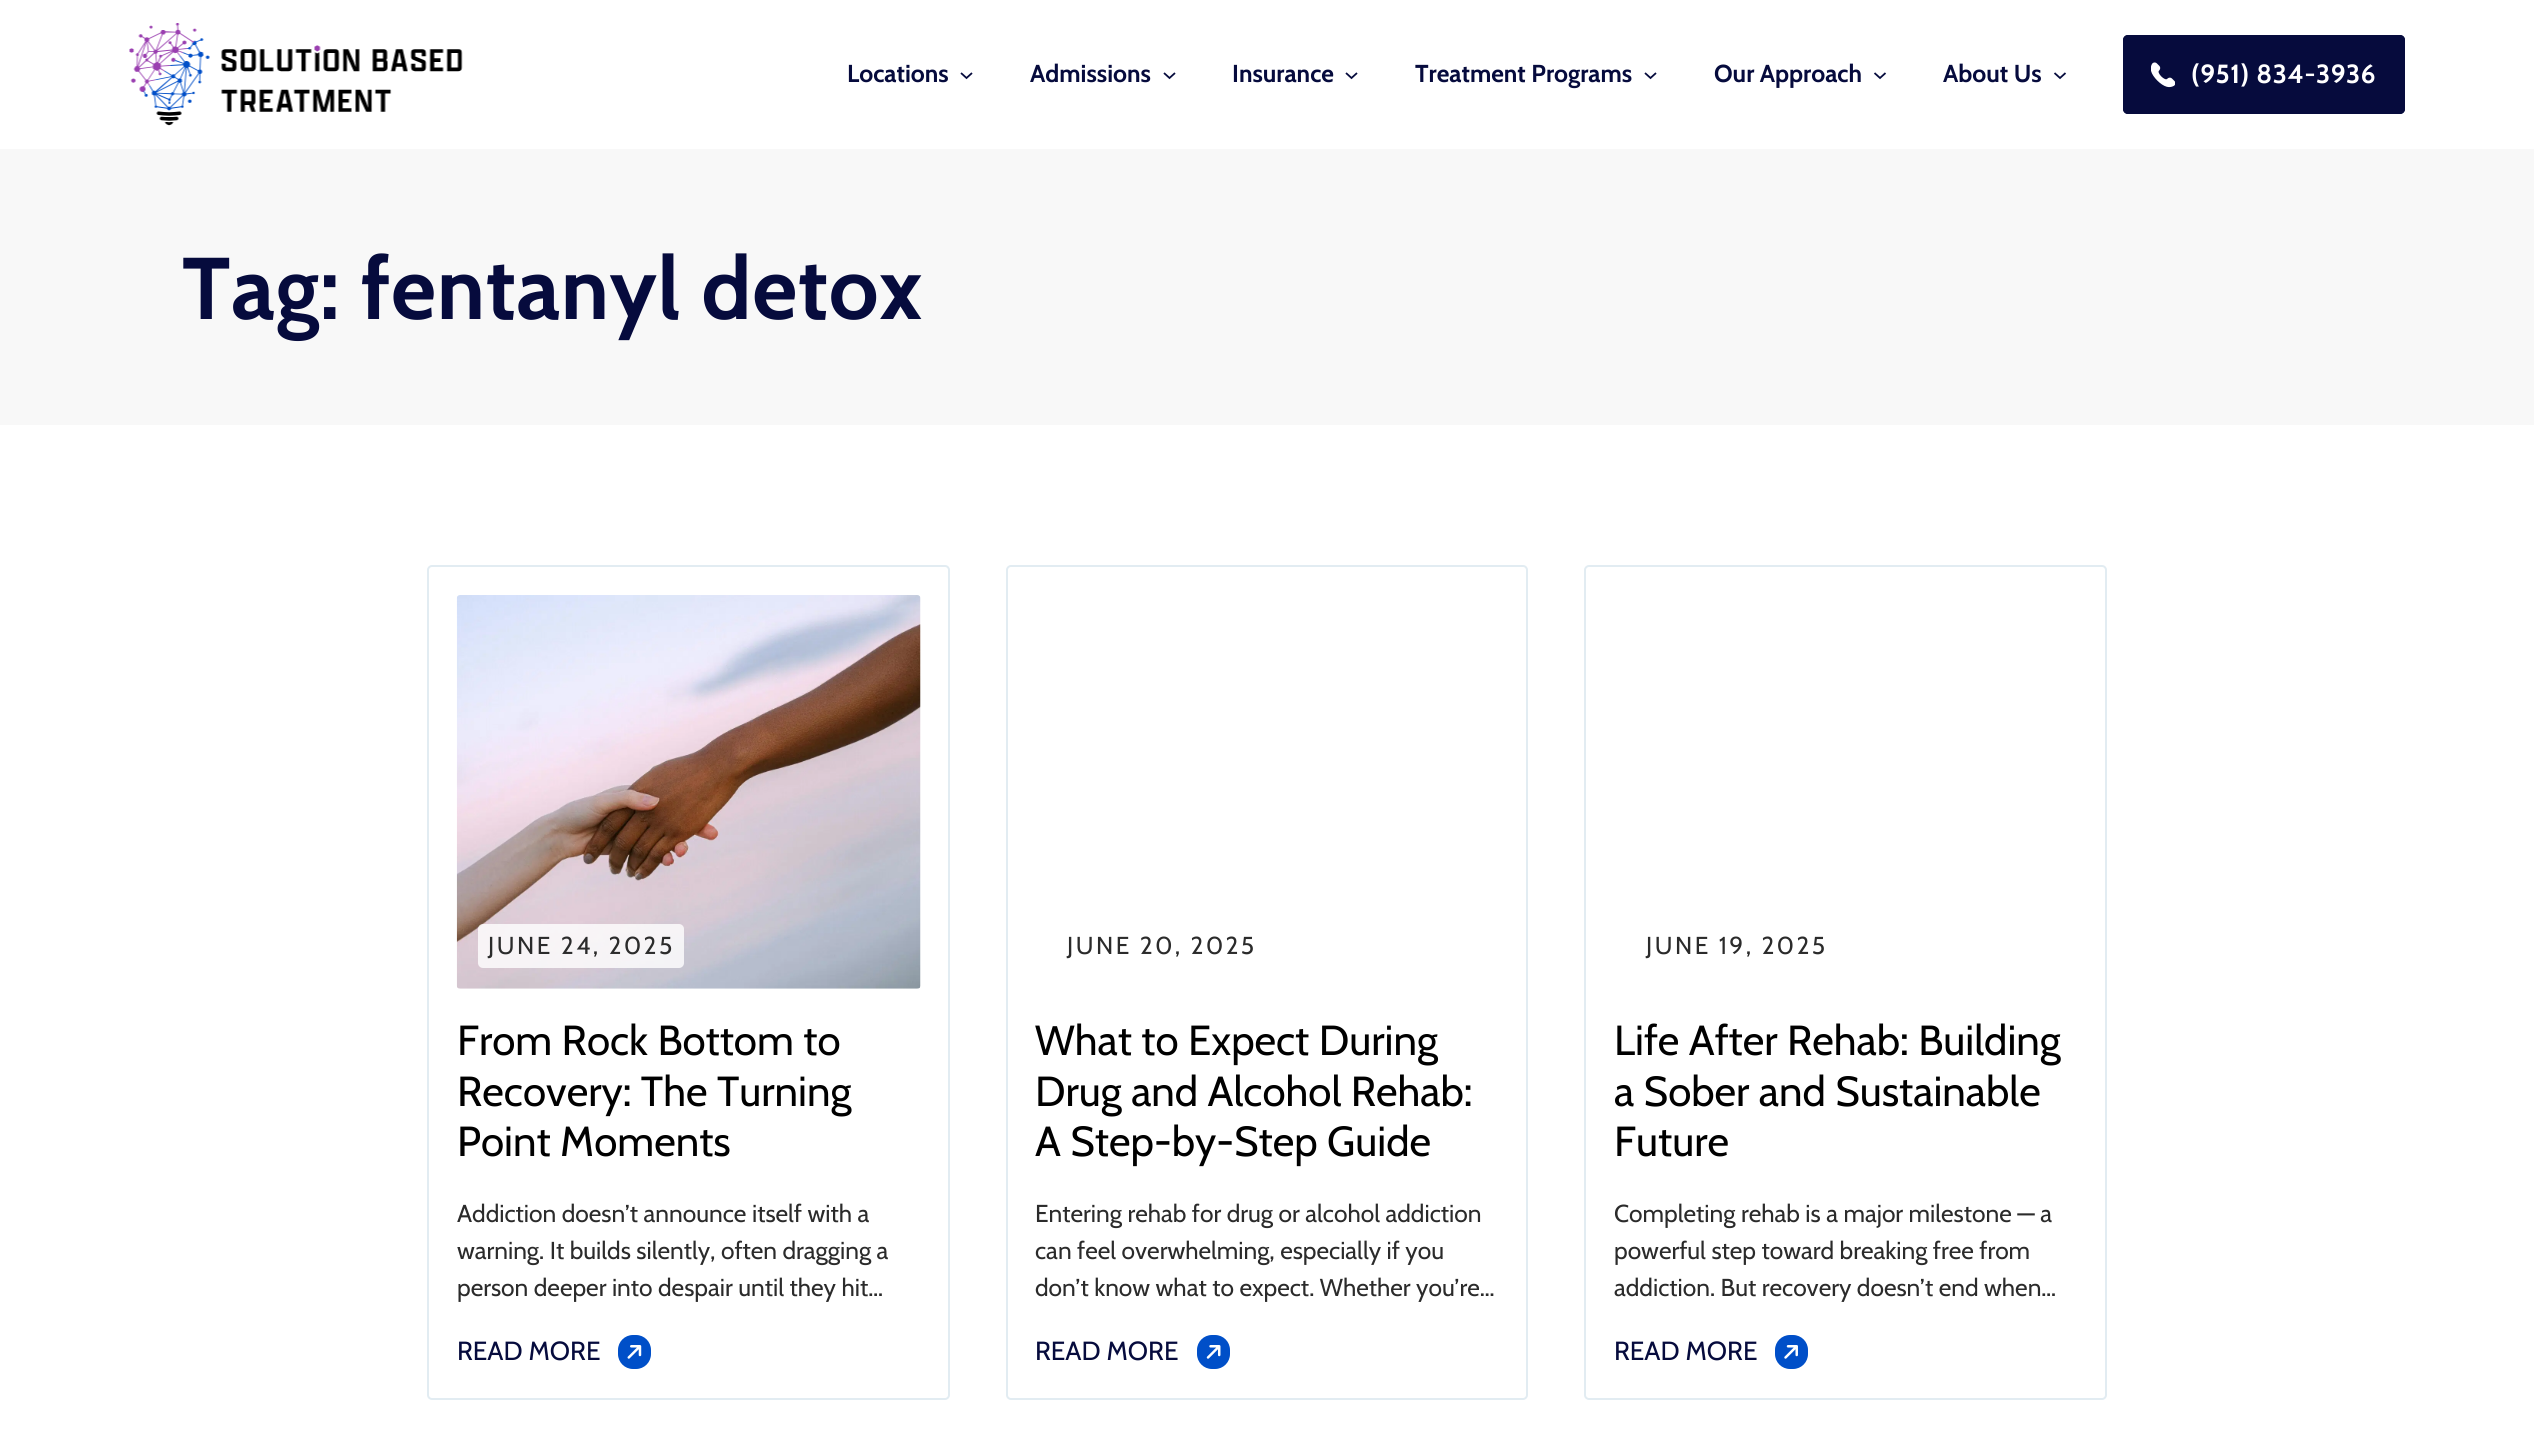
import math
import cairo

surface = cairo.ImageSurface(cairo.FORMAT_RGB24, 2534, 1451)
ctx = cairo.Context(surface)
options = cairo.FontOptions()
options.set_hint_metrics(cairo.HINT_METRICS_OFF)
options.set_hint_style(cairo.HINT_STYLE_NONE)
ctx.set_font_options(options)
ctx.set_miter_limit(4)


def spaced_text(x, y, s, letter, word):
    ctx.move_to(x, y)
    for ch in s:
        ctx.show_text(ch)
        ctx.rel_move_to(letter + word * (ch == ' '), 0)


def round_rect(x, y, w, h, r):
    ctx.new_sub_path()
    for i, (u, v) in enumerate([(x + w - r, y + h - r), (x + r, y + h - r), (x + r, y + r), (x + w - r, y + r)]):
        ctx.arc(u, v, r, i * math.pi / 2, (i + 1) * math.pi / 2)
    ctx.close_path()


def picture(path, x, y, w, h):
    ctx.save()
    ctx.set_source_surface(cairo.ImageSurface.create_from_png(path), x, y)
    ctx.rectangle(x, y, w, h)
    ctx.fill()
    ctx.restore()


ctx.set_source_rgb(1, 1, 1)
ctx.paint()
picture("img1.png", 129, 23, 334, 103)
ctx.select_font_face("Cabin", cairo.FONT_SLANT_NORMAL, cairo.FONT_WEIGHT_BOLD)
ctx.set_font_size(24.5)
ctx.set_source_rgb(0.024, 0.043, 0.239)
ctx.move_to(847, 82)
ctx.show_text("Locations")
ctx.new_path()
ctx.move_to(961, 73)
ctx.line_to(966.5, 78)
ctx.line_to(972, 73)
ctx.set_line_width(1.8)
ctx.stroke()
ctx.move_to(1030, 82)
ctx.show_text("Admissions")
ctx.new_path()
ctx.move_to(1164, 73)
ctx.line_to(1169.5, 78)
ctx.line_to(1175, 73)
ctx.stroke()
ctx.move_to(1232, 82)
ctx.show_text("Insurance")
ctx.new_path()
ctx.move_to(1346, 73)
ctx.line_to(1351.5, 78)
ctx.line_to(1357, 73)
ctx.stroke()
ctx.move_to(1415, 82)
ctx.show_text("Treatment Programs")
ctx.new_path()
ctx.move_to(1645, 73)
ctx.line_to(1650.5, 78)
ctx.line_to(1656, 73)
ctx.stroke()
ctx.move_to(1714, 82)
ctx.show_text("Our Approach")
ctx.new_path()
ctx.move_to(1874.5, 73)
ctx.line_to(1880, 78)
ctx.line_to(1885.5, 73)
ctx.stroke()
ctx.move_to(1943, 82)
ctx.show_text("About Us")
ctx.new_path()
ctx.move_to(2054.5, 73)
ctx.line_to(2060, 78)
ctx.line_to(2065.5, 73)
ctx.stroke()
round_rect(2123, 35, 282, 79, 5)
ctx.fill()
picture("img2.png", 2151, 62, 24, 26)
round_rect(2125, 37, 278, 75, 3)
ctx.set_line_width(4)
ctx.stroke()
ctx.set_font_size(26.25)
ctx.set_source_rgb(1, 1, 1)
spaced_text(2191, 83, "(951) 834-3936", 0.6, 0)
ctx.set_source_rgb(0.969, 0.969, 0.969)
ctx.rectangle(0, 149, 2534, 276)
ctx.fill()
ctx.set_font_size(87.5)
ctx.set_source_rgb(0.024, 0.043, 0.239)
spaced_text(182, 319, "Tag: fentanyl detox", 0.7, 0)
round_rect(428, 566, 521, 833, 4)
ctx.set_source_rgb(0.886, 0.922, 0.949)
ctx.set_line_width(2)
ctx.stroke()
picture("img3.png", 456, 595, 465, 394)
ctx.set_source_rgba(1, 1, 1, 0.8)
round_rect(478, 924, 206, 44, 5)
ctx.fill()
ctx.select_font_face("Cabin")
ctx.set_font_size(24.5)
ctx.set_source_rgb(0.169, 0.169, 0.169)
spaced_text(488, 954, "JUNE 24, 2025", 2.5, 0)
ctx.set_font_size(42)
ctx.set_source_rgb(0, 0, 0)
ctx.move_to(457, 1055)
ctx.show_text("From Rock Bottom to")
ctx.move_to(457, 1106)
ctx.show_text("Recovery: The Turning")
ctx.move_to(457, 1156)
ctx.show_text("Point Moments")
ctx.set_font_size(24.5)
ctx.set_source_rgb(0.169, 0.169, 0.169)
ctx.move_to(457, 1222)
ctx.show_text("Addiction doesn’t announce itself with a")
ctx.move_to(457, 1259)
ctx.show_text("warning. It builds silently, often dragging a")
ctx.move_to(457, 1296)
ctx.show_text("person deeper into despair until they hit…")
ctx.set_font_size(26.25)
ctx.set_source_rgb(0.024, 0.043, 0.239)
ctx.move_to(457, 1360)
ctx.show_text("READ MORE")
picture("img4.png", 618, 1335, 33, 34)
round_rect(1007, 566, 520, 833, 4)
ctx.set_source_rgb(0.886, 0.922, 0.949)
ctx.stroke()
ctx.set_font_size(24.5)
ctx.set_source_rgb(0.169, 0.169, 0.169)
spaced_text(1067, 954, "JUNE 20, 2025", 2.5, 0)
ctx.set_font_size(42)
ctx.set_source_rgb(0, 0, 0)
ctx.move_to(1035, 1055)
ctx.show_text("What to Expect During")
ctx.move_to(1035, 1106)
ctx.show_text("Drug and Alcohol Rehab:")
ctx.move_to(1035, 1156)
ctx.show_text("A Step-by-Step Guide")
ctx.set_font_size(24.5)
ctx.set_source_rgb(0.169, 0.169, 0.169)
ctx.move_to(1035, 1222)
ctx.show_text("Entering rehab for drug or alcohol addiction")
ctx.move_to(1035, 1259)
ctx.show_text("can feel overwhelming, especially if you")
ctx.move_to(1035, 1296)
ctx.show_text("don’t know what to expect. Whether you’re…")
ctx.set_font_size(26.25)
ctx.set_source_rgb(0.024, 0.043, 0.239)
ctx.move_to(1035, 1360)
ctx.show_text("READ MORE")
picture("img5.png", 1197, 1335, 33, 34)
round_rect(1585, 566, 521, 833, 4)
ctx.set_source_rgb(0.886, 0.922, 0.949)
ctx.stroke()
ctx.set_font_size(24.5)
ctx.set_source_rgb(0.169, 0.169, 0.169)
spaced_text(1646, 954, "JUNE 19, 2025", 2.5, 0)
ctx.set_font_size(42)
ctx.set_source_rgb(0, 0, 0)
ctx.move_to(1614, 1055)
ctx.show_text("Life After Rehab: Building")
ctx.move_to(1614, 1106)
ctx.show_text("a Sober and Sustainable")
ctx.move_to(1614, 1156)
ctx.show_text("Future")
ctx.set_font_size(24.5)
ctx.set_source_rgb(0.169, 0.169, 0.169)
ctx.move_to(1614, 1222)
ctx.show_text("Completing rehab is a major milestone — a")
ctx.move_to(1614, 1259)
ctx.show_text("powerful step toward breaking free from")
ctx.move_to(1614, 1296)
ctx.show_text("addiction. But recovery doesn’t end when…")
ctx.set_font_size(26.25)
ctx.set_source_rgb(0.024, 0.043, 0.239)
ctx.move_to(1614, 1360)
ctx.show_text("READ MORE")
picture("img6.png", 1775, 1335, 33, 34)
surface.write_to_png("page.png")
